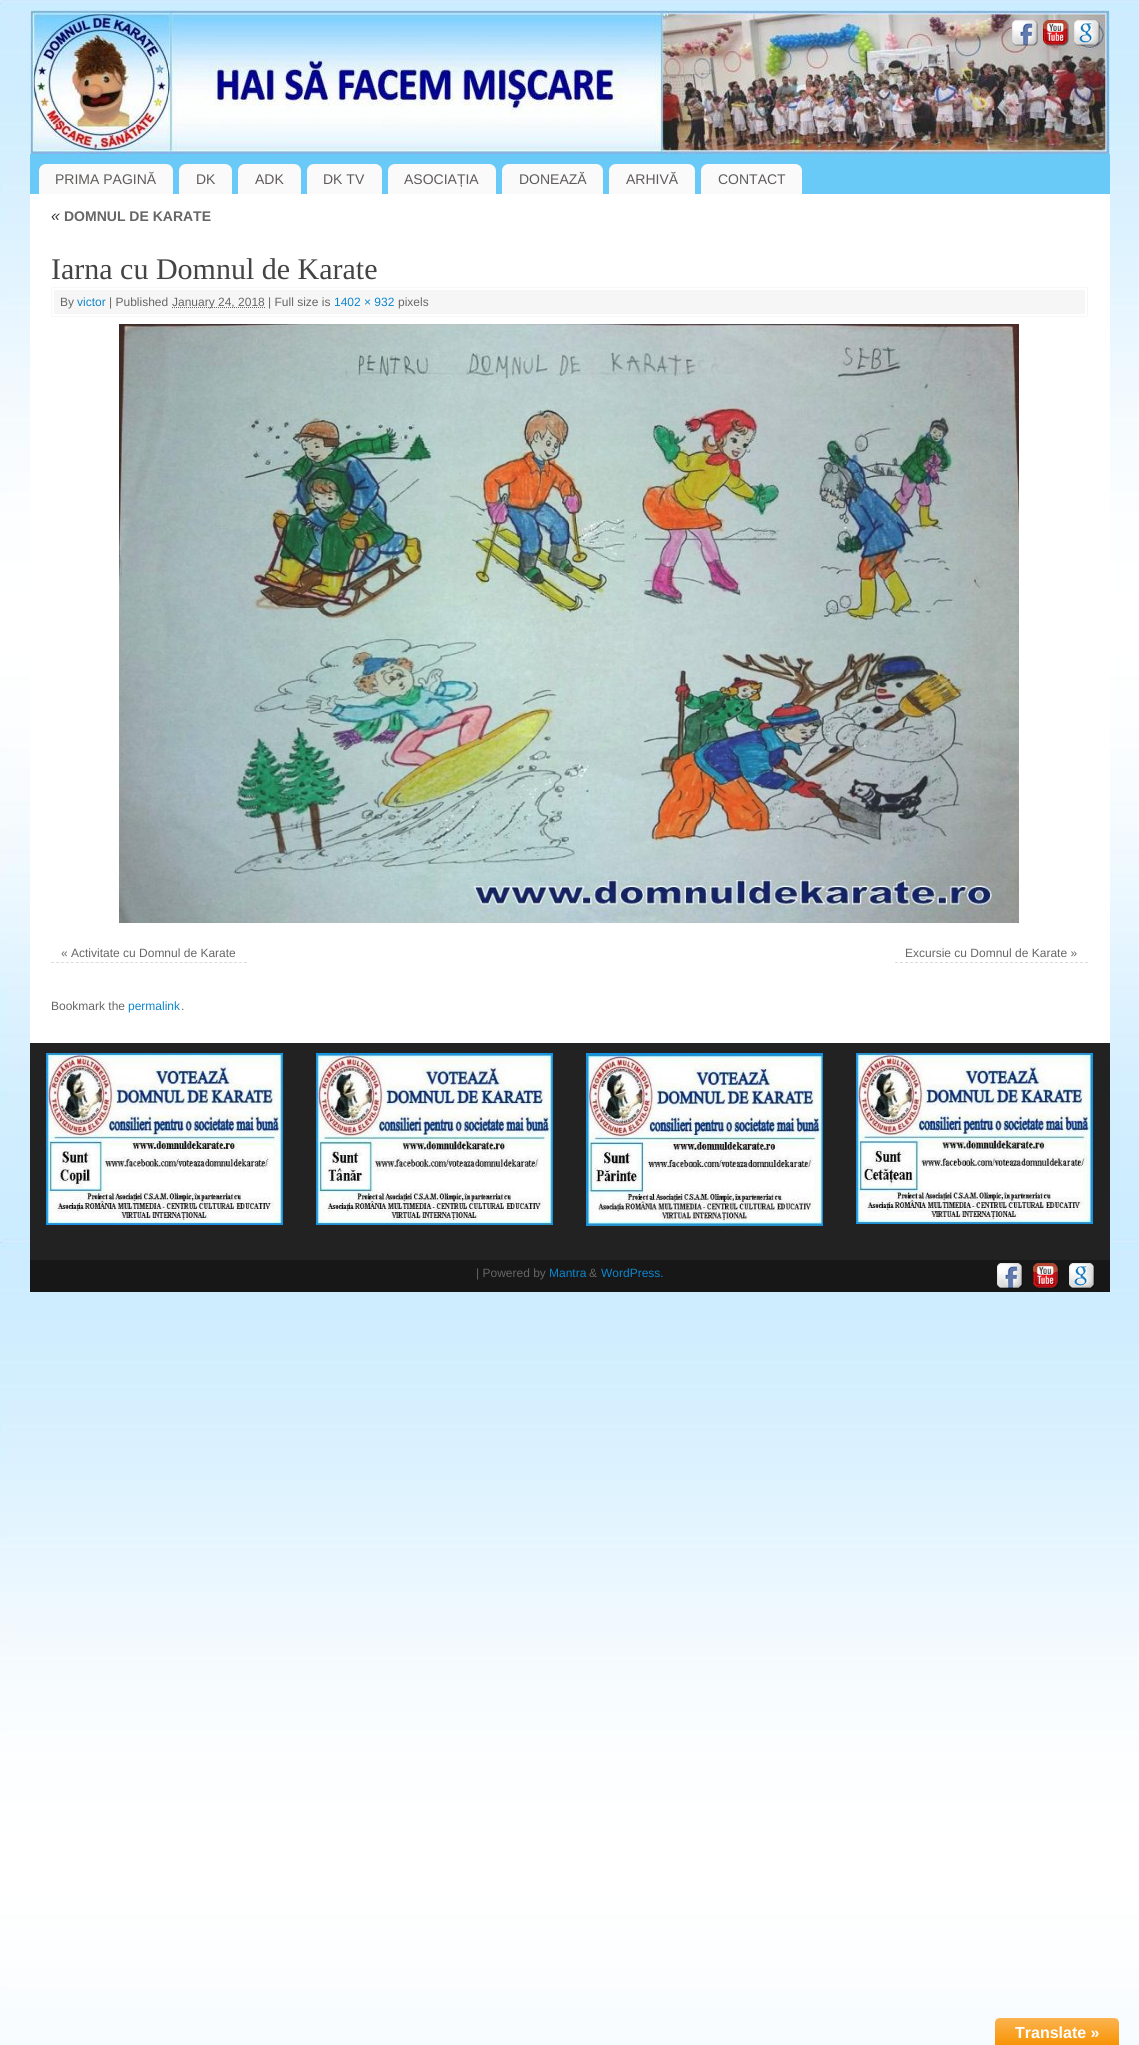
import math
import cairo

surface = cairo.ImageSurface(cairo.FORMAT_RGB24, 1139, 2045)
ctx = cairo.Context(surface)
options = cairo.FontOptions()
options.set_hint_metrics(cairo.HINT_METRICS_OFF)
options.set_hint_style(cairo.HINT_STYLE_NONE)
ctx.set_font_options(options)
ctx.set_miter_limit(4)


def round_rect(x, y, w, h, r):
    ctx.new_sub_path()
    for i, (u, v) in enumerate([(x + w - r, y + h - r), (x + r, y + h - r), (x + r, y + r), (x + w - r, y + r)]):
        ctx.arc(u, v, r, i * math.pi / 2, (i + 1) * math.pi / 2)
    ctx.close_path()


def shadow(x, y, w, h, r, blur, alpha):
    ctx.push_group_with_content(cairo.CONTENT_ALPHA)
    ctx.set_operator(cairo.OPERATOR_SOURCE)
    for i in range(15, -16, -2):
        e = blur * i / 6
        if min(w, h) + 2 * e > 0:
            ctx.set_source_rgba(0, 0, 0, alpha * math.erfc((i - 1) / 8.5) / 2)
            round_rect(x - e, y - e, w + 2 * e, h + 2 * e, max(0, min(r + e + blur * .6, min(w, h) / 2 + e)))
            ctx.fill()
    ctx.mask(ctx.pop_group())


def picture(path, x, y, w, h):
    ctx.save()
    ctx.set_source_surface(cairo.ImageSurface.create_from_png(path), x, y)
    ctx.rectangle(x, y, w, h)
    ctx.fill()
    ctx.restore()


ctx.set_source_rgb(1, 1, 1)
ctx.paint()
picture("img1.png", 0, 0, 1139, 2045)
ctx.set_source_rgb(0.416, 0.792, 0.965)
ctx.rectangle(30, 154, 1080, 40)
ctx.fill()
picture("img2.png", 30, 10, 1080, 144)
picture("img3.png", 1012, 20, 26, 26)
picture("img4.png", 1043, 20, 26, 26)
picture("img5.png", 1074, 20, 26, 26)
ctx.set_source_rgb(0.98, 0.98, 0.98)
ctx.new_path()
ctx.move_to(46, 164)
ctx.line_to(166, 164)
ctx.curve_to(170, 164, 173, 167, 173, 171)
ctx.line_to(173, 194)
ctx.line_to(39, 194)
ctx.line_to(39, 171)
ctx.curve_to(39, 167, 42, 164, 46, 164)
ctx.close_path()
ctx.fill()
ctx.select_font_face("Liberation Sans")
ctx.set_font_size(14)
ctx.set_source_rgb(0.373, 0.357, 0.357)
ctx.move_to(55, 184)
ctx.show_text("PRIMA PAGINĂ")
ctx.set_source_rgb(0.98, 0.98, 0.98)
ctx.new_path()
ctx.move_to(186, 164)
ctx.line_to(225, 164)
ctx.curve_to(229, 164, 232, 167, 232, 171)
ctx.line_to(232, 194)
ctx.line_to(179, 194)
ctx.line_to(179, 171)
ctx.curve_to(179, 167, 182, 164, 186, 164)
ctx.close_path()
ctx.fill()
ctx.set_source_rgb(0.373, 0.357, 0.357)
ctx.move_to(196, 184)
ctx.show_text("DK")
ctx.set_source_rgb(0.98, 0.98, 0.98)
ctx.new_path()
ctx.move_to(245, 164)
ctx.line_to(294, 164)
ctx.curve_to(298, 164, 301, 167, 301, 171)
ctx.line_to(301, 194)
ctx.line_to(238, 194)
ctx.line_to(238, 171)
ctx.curve_to(238, 167, 241, 164, 245, 164)
ctx.close_path()
ctx.fill()
ctx.set_source_rgb(0.373, 0.357, 0.357)
ctx.move_to(255, 184)
ctx.show_text("ADK")
ctx.set_source_rgb(0.98, 0.98, 0.98)
ctx.new_path()
ctx.move_to(314, 164)
ctx.line_to(375, 164)
ctx.curve_to(379, 164, 382, 167, 382, 171)
ctx.line_to(382, 194)
ctx.line_to(307, 194)
ctx.line_to(307, 171)
ctx.curve_to(307, 167, 310, 164, 314, 164)
ctx.close_path()
ctx.fill()
ctx.set_source_rgb(0.373, 0.357, 0.357)
ctx.move_to(323, 184)
ctx.show_text("DK TV")
ctx.set_source_rgb(0.98, 0.98, 0.98)
ctx.new_path()
ctx.move_to(395, 164)
ctx.line_to(489, 164)
ctx.curve_to(493, 164, 496, 167, 496, 171)
ctx.line_to(496, 194)
ctx.line_to(388, 194)
ctx.line_to(388, 171)
ctx.curve_to(388, 167, 391, 164, 395, 164)
ctx.close_path()
ctx.fill()
ctx.set_source_rgb(0.373, 0.357, 0.357)
ctx.move_to(404, 184)
ctx.show_text("ASOCIAȚIA")
ctx.set_source_rgb(0.98, 0.98, 0.98)
ctx.new_path()
ctx.move_to(509, 164)
ctx.line_to(596, 164)
ctx.curve_to(600, 164, 603, 167, 603, 171)
ctx.line_to(603, 194)
ctx.line_to(502, 194)
ctx.line_to(502, 171)
ctx.curve_to(502, 167, 505, 164, 509, 164)
ctx.close_path()
ctx.fill()
ctx.set_source_rgb(0.373, 0.357, 0.357)
ctx.move_to(519, 184)
ctx.show_text("DONEAZĂ")
ctx.set_source_rgb(0.98, 0.98, 0.98)
ctx.new_path()
ctx.move_to(616, 164)
ctx.line_to(688, 164)
ctx.curve_to(692, 164, 695, 167, 695, 171)
ctx.line_to(695, 194)
ctx.line_to(609, 194)
ctx.line_to(609, 171)
ctx.curve_to(609, 167, 612, 164, 616, 164)
ctx.close_path()
ctx.fill()
ctx.set_source_rgb(0.373, 0.357, 0.357)
ctx.move_to(626, 184)
ctx.show_text("ARHIVĂ")
ctx.set_source_rgb(0.98, 0.98, 0.98)
ctx.new_path()
ctx.move_to(708, 164)
ctx.line_to(795, 164)
ctx.curve_to(799, 164, 802, 167, 802, 171)
ctx.line_to(802, 194)
ctx.line_to(701, 194)
ctx.line_to(701, 171)
ctx.curve_to(701, 167, 704, 164, 708, 164)
ctx.close_path()
ctx.fill()
ctx.set_source_rgb(0.373, 0.357, 0.357)
ctx.move_to(718, 184)
ctx.show_text("CONTACT")
ctx.set_source_rgb(1, 1, 1)
ctx.rectangle(30, 194, 1080, 849)
ctx.fill()
ctx.select_font_face("Liberation Sans", cairo.FONT_SLANT_ITALIC)
ctx.set_font_size(16)
ctx.set_source_rgb(0.2, 0.2, 0.2)
ctx.move_to(51, 221)
ctx.show_text("«")
ctx.select_font_face("Liberation Sans", cairo.FONT_SLANT_NORMAL, cairo.FONT_WEIGHT_BOLD)
ctx.set_font_size(14)
ctx.set_source_rgb(0.4, 0.4, 0.4)
ctx.move_to(64, 221)
ctx.show_text("DOMNUL DE KARATE")
ctx.select_font_face("Liberation Serif")
ctx.set_font_size(30)
ctx.set_source_rgb(0.267, 0.267, 0.267)
ctx.move_to(51, 279)
ctx.show_text("Iarna cu Domnul de Karate")
ctx.set_source_rgb(0.867, 0.867, 0.867)
shadow(52, 288, 1035, 28, 0, 0.5, 1)
ctx.set_source_rgb(0.961, 0.961, 0.961)
ctx.rectangle(53, 289, 1033, 26)
ctx.fill_preserve()
ctx.set_source_rgb(1, 1, 1)
ctx.stroke()
ctx.select_font_face("Liberation Sans")
ctx.set_font_size(12)
ctx.set_source_rgb(0.4, 0.4, 0.4)
ctx.move_to(60, 306)
ctx.show_text("By")
ctx.set_source_rgb(0.051, 0.522, 0.8)
ctx.move_to(77, 306)
ctx.show_text("victor")
ctx.set_source_rgb(0.4, 0.4, 0.4)
ctx.move_to(109, 306)
ctx.show_text("| Published")
ctx.new_path()
ctx.move_to(172, 307.5)
ctx.line_to(265, 307.5)
ctx.set_line_width(1)
ctx.set_dash([1, 1])
ctx.stroke()
ctx.move_to(172, 306)
ctx.show_text("January 24, 2018 | Full size is")
ctx.set_source_rgb(0.051, 0.522, 0.8)
ctx.move_to(334, 306)
ctx.show_text("1402 × 932")
ctx.set_source_rgb(0.4, 0.4, 0.4)
ctx.move_to(398, 306)
ctx.show_text("pixels")
picture("img6.png", 119, 324, 900, 599)
ctx.new_path()
ctx.move_to(51, 962.5)
ctx.line_to(247, 962.5)
ctx.set_source_rgb(0.867, 0.867, 0.867)
ctx.set_dash([3, 1.95])
ctx.stroke()
ctx.set_source_rgb(0.4, 0.4, 0.4)
ctx.move_to(61, 957)
ctx.show_text("« Activitate cu Domnul de Karate")
ctx.new_path()
ctx.move_to(895, 962.5)
ctx.line_to(1088, 962.5)
ctx.set_source_rgb(0.867, 0.867, 0.867)
ctx.set_dash([3, 2])
ctx.stroke()
ctx.set_source_rgb(0.4, 0.4, 0.4)
ctx.move_to(905, 957)
ctx.show_text("Excursie cu Domnul de Karate »")
ctx.move_to(51, 1010)
ctx.show_text("Bookmark the")
ctx.set_source_rgb(0.051, 0.522, 0.8)
ctx.move_to(128, 1010)
ctx.show_text("permalink")
ctx.set_source_rgb(0.4, 0.4, 0.4)
ctx.move_to(181, 1010)
ctx.show_text(".")
ctx.set_source_rgb(0.133, 0.133, 0.133)
ctx.rectangle(30, 1043, 1080, 217)
ctx.fill()
picture("img7.png", 46, 1053, 237, 172)
picture("img8.png", 316, 1053, 237, 172)
picture("img9.png", 586, 1053, 237, 173)
picture("img10.png", 856, 1053, 237, 171)
ctx.set_source_rgb(0.09, 0.09, 0.09)
ctx.rectangle(30, 1260, 1080, 32)
ctx.fill()
ctx.set_source_rgb(0.4, 0.4, 0.4)
ctx.move_to(476, 1277)
ctx.show_text("| Powered by")
ctx.set_source_rgb(0.051, 0.522, 0.8)
ctx.move_to(549, 1277)
ctx.show_text("Mantra")
ctx.set_source_rgb(0.4, 0.4, 0.4)
ctx.move_to(589, 1277)
ctx.show_text("&")
ctx.set_source_rgb(0.051, 0.522, 0.8)
ctx.move_to(601, 1277)
ctx.show_text("WordPress.")
picture("img11.png", 997, 1263, 26, 26)
picture("img12.png", 1033, 1263, 26, 26)
picture("img13.png", 1069, 1263, 26, 26)
gradient = cairo.LinearGradient(1057, 2018, 1057, 2045)
gradient.add_color_stop_rgba(0, 0.984, 0.706, 0.314, 1)
gradient.add_color_stop_rgba(1, 0.973, 0.58, 0.024, 1)
ctx.set_source(gradient)
ctx.new_path()
ctx.move_to(1000, 2018)
ctx.line_to(1114, 2018)
ctx.curve_to(1117, 2018, 1119, 2020, 1119, 2023)
ctx.line_to(1119, 2045)
ctx.line_to(995, 2045)
ctx.line_to(995, 2023)
ctx.curve_to(995, 2020, 997, 2018, 1000, 2018)
ctx.close_path()
ctx.fill()
ctx.select_font_face("Liberation Sans", cairo.FONT_SLANT_NORMAL, cairo.FONT_WEIGHT_BOLD)
ctx.set_font_size(16)
ctx.set_source_rgb(1, 1, 1)
ctx.move_to(1015, 2038)
ctx.show_text("Translate »")
surface.write_to_png("page.png")
